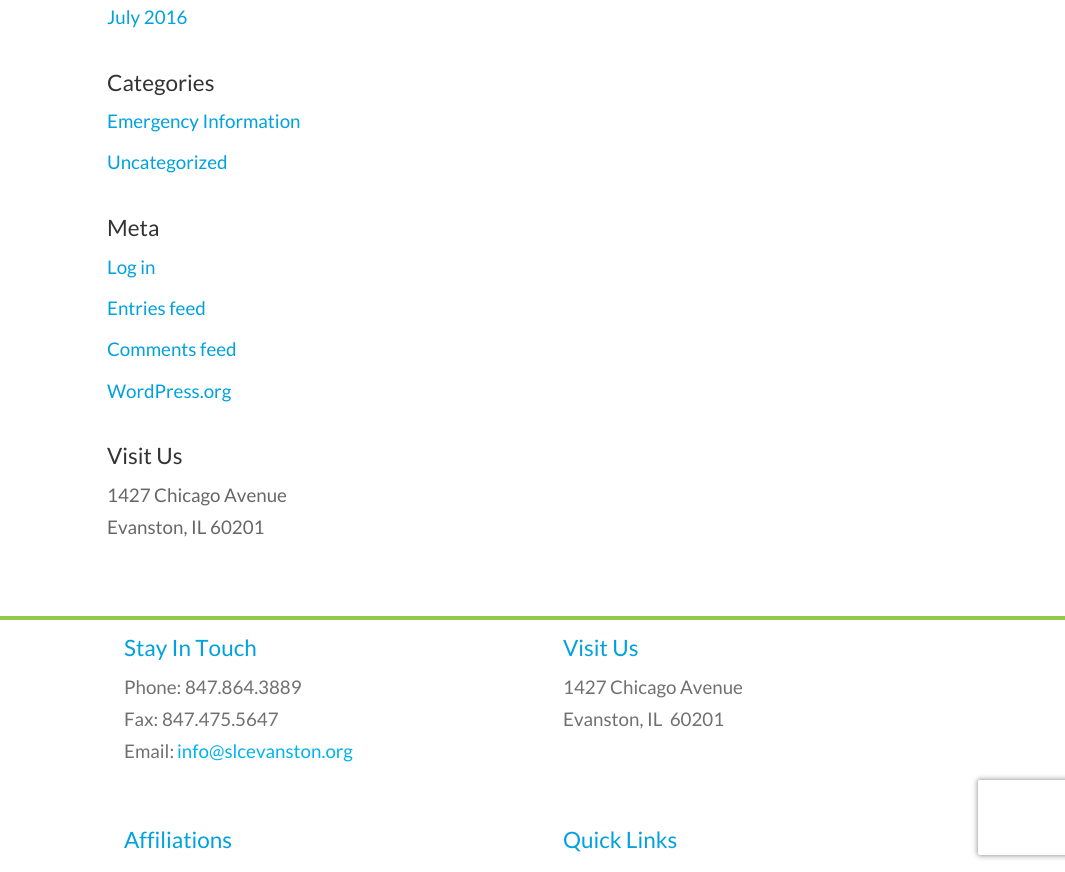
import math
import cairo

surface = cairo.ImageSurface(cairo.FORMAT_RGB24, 1065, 872)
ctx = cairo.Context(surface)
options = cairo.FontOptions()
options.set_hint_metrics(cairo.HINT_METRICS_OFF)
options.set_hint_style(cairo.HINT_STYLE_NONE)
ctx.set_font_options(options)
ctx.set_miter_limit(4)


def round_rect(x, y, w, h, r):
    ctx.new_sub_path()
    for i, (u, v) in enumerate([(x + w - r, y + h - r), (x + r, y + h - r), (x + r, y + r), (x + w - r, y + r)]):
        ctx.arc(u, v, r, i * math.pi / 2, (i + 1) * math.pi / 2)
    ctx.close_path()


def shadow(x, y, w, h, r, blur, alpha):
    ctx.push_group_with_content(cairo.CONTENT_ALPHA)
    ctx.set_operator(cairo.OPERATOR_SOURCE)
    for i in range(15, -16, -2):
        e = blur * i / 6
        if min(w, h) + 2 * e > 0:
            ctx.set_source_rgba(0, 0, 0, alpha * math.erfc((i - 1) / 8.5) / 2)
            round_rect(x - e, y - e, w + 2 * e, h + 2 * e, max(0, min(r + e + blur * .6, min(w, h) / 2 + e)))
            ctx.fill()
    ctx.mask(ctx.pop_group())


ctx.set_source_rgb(1, 1, 1)
ctx.paint()
ctx.select_font_face("Lato")
ctx.set_font_size(18.75)
ctx.set_source_rgb(0, 0.631, 0.871)
ctx.move_to(107, 24)
ctx.show_text("July 2016")
ctx.set_font_size(22.5)
ctx.set_source_rgb(0.2, 0.2, 0.2)
ctx.move_to(107, 91)
ctx.show_text("Categories")
ctx.set_font_size(18.75)
ctx.set_source_rgb(0, 0.631, 0.871)
ctx.move_to(107, 128)
ctx.show_text("Emergency Information")
ctx.move_to(107, 169)
ctx.show_text("Uncategorized")
ctx.set_font_size(22.5)
ctx.set_source_rgb(0.2, 0.2, 0.2)
ctx.move_to(107, 236)
ctx.show_text("Meta")
ctx.set_font_size(18.75)
ctx.set_source_rgb(0, 0.631, 0.871)
ctx.move_to(107, 274)
ctx.show_text("Log in")
ctx.move_to(107, 315)
ctx.show_text("Entries feed")
ctx.move_to(107, 356)
ctx.show_text("Comments feed")
ctx.move_to(107, 398)
ctx.show_text("WordPress.org")
ctx.set_font_size(22.5)
ctx.set_source_rgb(0.2, 0.2, 0.2)
ctx.move_to(107, 464)
ctx.show_text("Visit Us")
ctx.set_font_size(18.75)
ctx.set_source_rgb(0.4, 0.4, 0.4)
ctx.move_to(107, 502)
ctx.show_text("1427 Chicago Avenue")
ctx.move_to(107, 534)
ctx.show_text("Evanston, IL 60201")
ctx.set_source_rgb(0.58, 0.788, 0.278)
ctx.rectangle(0, 616, 1065, 4)
ctx.fill()
ctx.set_font_size(22.5)
ctx.set_source_rgb(0, 0.631, 0.871)
ctx.move_to(124, 656)
ctx.show_text("Stay In Touch")
ctx.set_font_size(18.75)
ctx.set_source_rgb(0.439, 0.439, 0.439)
ctx.move_to(124, 694)
ctx.show_text("Phone: 847.864.3889")
ctx.move_to(124, 726)
ctx.show_text("Fax: 847.475.5647")
ctx.move_to(124, 758)
ctx.show_text("Email:")
ctx.set_source_rgb(0, 0.702, 0.918)
ctx.move_to(177, 758)
ctx.show_text("info@slcevanston.org")
ctx.set_font_size(22.5)
ctx.set_source_rgb(0, 0.631, 0.871)
ctx.move_to(563, 656)
ctx.show_text("Visit Us")
ctx.set_font_size(18.75)
ctx.set_source_rgb(0.439, 0.439, 0.439)
ctx.move_to(563, 694)
ctx.show_text("1427 Chicago Avenue")
ctx.move_to(563, 726)
ctx.show_text("Evanston, IL  60201")
ctx.set_font_size(22.5)
ctx.set_source_rgb(0, 0.631, 0.871)
ctx.move_to(124, 848)
ctx.show_text("Affiliations")
ctx.move_to(563, 848)
ctx.show_text("Quick Links")
ctx.save()
ctx.set_fill_rule(cairo.FILL_RULE_EVEN_ODD)
ctx.new_path()
ctx.move_to(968, 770)
ctx.line_to(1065, 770)
ctx.line_to(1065, 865)
ctx.line_to(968, 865)
ctx.close_path()
ctx.move_to(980.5, 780)
ctx.line_to(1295.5, 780)
ctx.curve_to(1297, 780, 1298, 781, 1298, 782.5)
ctx.line_to(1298, 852.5)
ctx.curve_to(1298, 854, 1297, 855, 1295.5, 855)
ctx.line_to(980.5, 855)
ctx.curve_to(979, 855, 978, 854, 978, 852.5)
ctx.line_to(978, 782.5)
ctx.curve_to(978, 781, 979, 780, 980.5, 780)
ctx.close_path()
ctx.clip()
ctx.set_source_rgb(0.502, 0.502, 0.502)
shadow(978, 780, 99, 75, 2.5, 3, 1)
ctx.restore()
surface.write_to_png("page.png")
